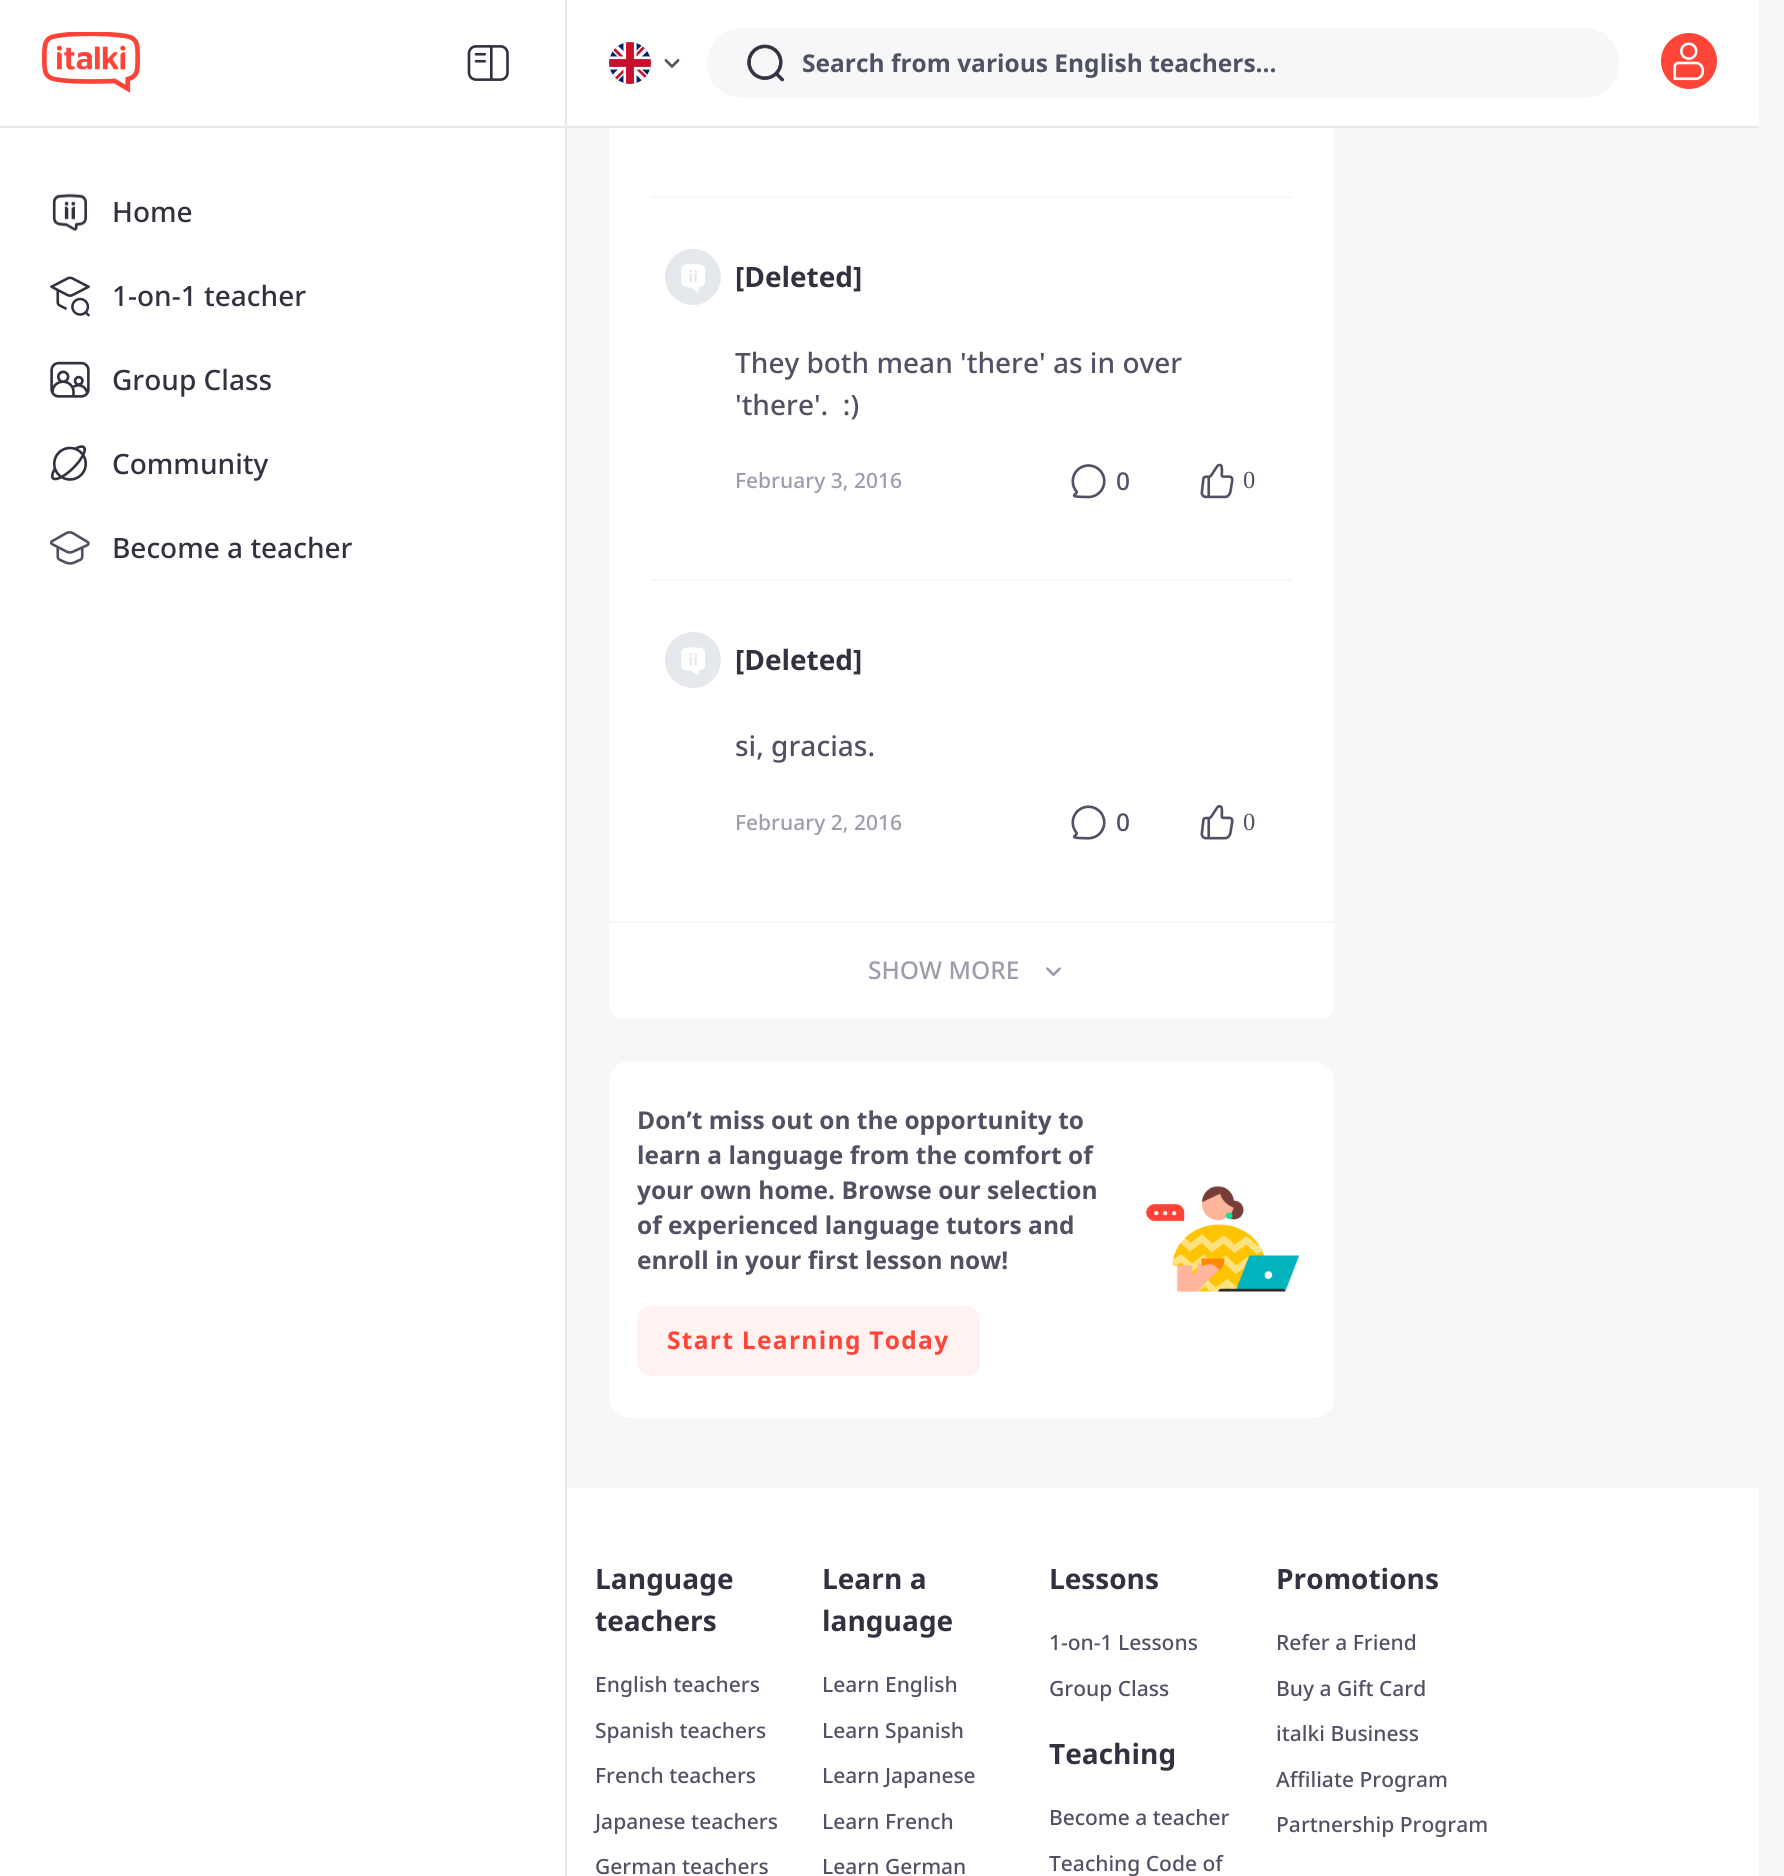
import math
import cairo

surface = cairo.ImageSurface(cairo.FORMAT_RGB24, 1784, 1876)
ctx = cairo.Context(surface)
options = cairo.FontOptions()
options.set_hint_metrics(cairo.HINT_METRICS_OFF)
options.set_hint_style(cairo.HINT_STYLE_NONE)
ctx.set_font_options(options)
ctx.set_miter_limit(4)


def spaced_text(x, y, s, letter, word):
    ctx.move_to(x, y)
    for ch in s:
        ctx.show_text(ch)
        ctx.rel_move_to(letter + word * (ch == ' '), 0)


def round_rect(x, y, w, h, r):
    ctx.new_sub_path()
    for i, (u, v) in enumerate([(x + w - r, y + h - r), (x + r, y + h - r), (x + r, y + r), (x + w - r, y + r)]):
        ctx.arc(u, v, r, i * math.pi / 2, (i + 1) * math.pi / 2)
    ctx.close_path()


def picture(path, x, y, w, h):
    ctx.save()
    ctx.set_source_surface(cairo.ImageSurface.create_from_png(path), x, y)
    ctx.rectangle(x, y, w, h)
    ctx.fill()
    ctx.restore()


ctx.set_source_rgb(0.961, 0.965, 0.976)
ctx.paint()
ctx.set_source_rgb(1, 1, 1)
ctx.rectangle(0, 0, 565, 1876)
ctx.fill()
ctx.set_source_rgb(0.898, 0.91, 0.929)
ctx.rectangle(565, 0, 2, 1876)
ctx.fill()
ctx.rectangle(0, 126, 565, 2)
ctx.fill()
picture("img1.png", 42, 32, 98, 61)
picture("img2.png", 467, 45, 42, 36)
picture("img3.png", 52, 193, 35, 38)
ctx.select_font_face("Noto Sans Medium")
ctx.set_font_size(28)
ctx.set_source_rgb(0.192, 0.192, 0.251)
ctx.move_to(112, 222)
ctx.show_text("Home")
picture("img4.png", 50, 276, 40, 41)
ctx.move_to(112, 306)
ctx.show_text("1-on-1 teacher")
picture("img5.png", 50, 361, 40, 37)
ctx.move_to(112, 390)
ctx.show_text("Group Class")
picture("img6.png", 50, 445, 38, 36)
ctx.move_to(112, 474)
ctx.show_text("Community")
picture("img7.png", 50, 531, 40, 34)
ctx.move_to(112, 558)
ctx.show_text("Become a teacher")
ctx.set_source_rgb(1, 1, 1)
round_rect(609, -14, 725, 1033, 14)
ctx.fill()
ctx.rectangle(567, 0, 1192, 126)
ctx.fill()
ctx.set_source_rgb(0.898, 0.91, 0.929)
ctx.rectangle(567, 126, 1192, 2)
ctx.fill()
ctx.set_source_rgb(0.961, 0.965, 0.976)
ctx.arc(630, 63, 21, 0, 2 * math.pi)
ctx.fill()
picture("img8.png", 609, 42, 42, 42)
picture("img9.png", 664, 59, 16, 9)
round_rect(707, 28, 912, 70, 35)
ctx.fill()
picture("img10.png", 747, 44, 37, 38)
ctx.select_font_face("Noto Sans", cairo.FONT_SLANT_NORMAL, cairo.FONT_WEIGHT_BOLD)
ctx.set_font_size(24.5)
ctx.set_source_rgb(0.318, 0.318, 0.392)
ctx.move_to(802, 72)
ctx.show_text("Search from various English teachers...")
ctx.set_source_rgb(1, 0.267, 0.22)
ctx.new_path()
ctx.arc(1689, 61, 28, 0, 2 * math.pi)
ctx.fill()
picture("img11.png", 1673, 42, 32, 39)
ctx.set_source_rgb(0.961, 0.965, 0.976)
ctx.rectangle(651, 196, 641, 2)
ctx.fill()
picture("img12.png", 665, 249, 56, 56)
ctx.set_font_size(28)
ctx.set_source_rgb(0.192, 0.192, 0.251)
ctx.move_to(735, 287)
ctx.show_text("[Deleted]")
ctx.select_font_face("Noto Sans Medium")
ctx.set_source_rgb(0.318, 0.318, 0.392)
ctx.move_to(735, 373)
ctx.show_text("They both mean 'there' as in over")
ctx.move_to(735, 415)
ctx.show_text("'there'.  :)")
ctx.set_font_size(21)
ctx.set_source_rgb(0.612, 0.612, 0.675)
ctx.move_to(735, 488)
ctx.show_text("February 3, 2016")
picture("img13.png", 1071, 464, 35, 35)
ctx.set_font_size(24.5)
ctx.set_source_rgb(0.318, 0.318, 0.392)
ctx.move_to(1116, 490)
ctx.show_text("0")
picture("img14.png", 1200, 463, 34, 36)
ctx.select_font_face("Liberation Serif")
ctx.move_to(1243, 488)
ctx.show_text("0")
ctx.set_source_rgb(0.961, 0.965, 0.976)
ctx.rectangle(651, 579, 641, 2)
ctx.fill()
picture("img15.png", 665, 632, 56, 56)
ctx.select_font_face("Noto Sans", cairo.FONT_SLANT_NORMAL, cairo.FONT_WEIGHT_BOLD)
ctx.set_font_size(28)
ctx.set_source_rgb(0.192, 0.192, 0.251)
ctx.move_to(735, 670)
ctx.show_text("[Deleted]")
ctx.select_font_face("Noto Sans Medium")
ctx.set_source_rgb(0.318, 0.318, 0.392)
ctx.move_to(735, 756)
ctx.show_text("si, gracias.")
ctx.set_font_size(21)
ctx.set_source_rgb(0.612, 0.612, 0.675)
ctx.move_to(735, 830)
ctx.show_text("February 2, 2016")
picture("img16.png", 1071, 805, 35, 35)
ctx.set_font_size(24.5)
ctx.set_source_rgb(0.318, 0.318, 0.392)
ctx.move_to(1116, 831)
ctx.show_text("0")
picture("img17.png", 1200, 805, 34, 35)
ctx.select_font_face("Liberation Serif")
ctx.move_to(1243, 830)
ctx.show_text("0")
ctx.set_source_rgb(0.961, 0.965, 0.976)
ctx.rectangle(609, 921, 725, 2)
ctx.fill()
ctx.select_font_face("Noto Sans Medium")
ctx.set_source_rgb(0.612, 0.612, 0.675)
ctx.move_to(868, 979)
ctx.show_text("SHOW MORE")
picture("img18.png", 1046, 967, 15, 9)
ctx.set_source_rgb(1, 1, 1)
round_rect(609, 1061, 725, 357, 21)
ctx.fill()
ctx.select_font_face("Noto Sans", cairo.FONT_SLANT_NORMAL, cairo.FONT_WEIGHT_BOLD)
ctx.set_source_rgb(0.318, 0.318, 0.392)
ctx.move_to(637, 1129)
ctx.show_text("Don’t miss out on the opportunity to")
ctx.move_to(637, 1164)
ctx.show_text("learn a language from the comfort of")
ctx.move_to(637, 1199)
ctx.show_text("your own home. Browse our selection")
ctx.move_to(637, 1234)
ctx.show_text("of experienced language tutors and")
ctx.move_to(637, 1269)
ctx.show_text("enroll in your first lesson now!")
ctx.set_source_rgb(1, 0.949, 0.945)
round_rect(637, 1306, 343, 70, 14)
ctx.fill()
ctx.set_source_rgb(1, 0.267, 0.22)
spaced_text(667, 1349, "Start Learning Today", 1.3, 0)
picture("img19.png", 1146, 1186, 154, 106)
ctx.set_source_rgb(1, 1, 1)
ctx.rectangle(567, 1488, 1192, 388)
ctx.fill()
ctx.set_font_size(28)
ctx.set_source_rgb(0.192, 0.192, 0.251)
ctx.move_to(595, 1589)
ctx.show_text("Language")
ctx.move_to(595, 1631)
ctx.show_text("teachers")
ctx.select_font_face("Noto Sans Medium")
ctx.set_font_size(21)
ctx.set_source_rgb(0.318, 0.318, 0.392)
ctx.move_to(595, 1692)
ctx.show_text("English teachers")
ctx.move_to(595, 1738)
ctx.show_text("Spanish teachers")
ctx.move_to(595, 1783)
ctx.show_text("French teachers")
ctx.move_to(595, 1829)
ctx.show_text("Japanese teachers")
ctx.move_to(595, 1874)
ctx.show_text("German teachers")
ctx.select_font_face("Noto Sans", cairo.FONT_SLANT_NORMAL, cairo.FONT_WEIGHT_BOLD)
ctx.set_font_size(28)
ctx.set_source_rgb(0.192, 0.192, 0.251)
ctx.move_to(822, 1589)
ctx.show_text("Learn a")
ctx.move_to(822, 1631)
ctx.show_text("language")
ctx.select_font_face("Noto Sans Medium")
ctx.set_font_size(21)
ctx.set_source_rgb(0.318, 0.318, 0.392)
ctx.move_to(822, 1692)
ctx.show_text("Learn English")
ctx.move_to(822, 1738)
ctx.show_text("Learn Spanish")
ctx.move_to(822, 1783)
ctx.show_text("Learn Japanese")
ctx.move_to(822, 1829)
ctx.show_text("Learn French")
ctx.move_to(822, 1874)
ctx.show_text("Learn German")
ctx.select_font_face("Noto Sans", cairo.FONT_SLANT_NORMAL, cairo.FONT_WEIGHT_BOLD)
ctx.set_font_size(28)
ctx.set_source_rgb(0.192, 0.192, 0.251)
ctx.move_to(1049, 1589)
ctx.show_text("Lessons")
ctx.select_font_face("Noto Sans Medium")
ctx.set_font_size(21)
ctx.set_source_rgb(0.318, 0.318, 0.392)
ctx.move_to(1049, 1650)
ctx.show_text("1-on-1 Lessons")
ctx.move_to(1049, 1696)
ctx.show_text("Group Class")
ctx.select_font_face("Noto Sans", cairo.FONT_SLANT_NORMAL, cairo.FONT_WEIGHT_BOLD)
ctx.set_font_size(28)
ctx.set_source_rgb(0.192, 0.192, 0.251)
ctx.move_to(1049, 1764)
ctx.show_text("Teaching")
ctx.select_font_face("Noto Sans Medium")
ctx.set_font_size(21)
ctx.set_source_rgb(0.318, 0.318, 0.392)
ctx.move_to(1049, 1825)
ctx.show_text("Become a teacher")
ctx.move_to(1049, 1871)
ctx.show_text("Teaching Code of")
ctx.select_font_face("Noto Sans", cairo.FONT_SLANT_NORMAL, cairo.FONT_WEIGHT_BOLD)
ctx.set_font_size(28)
ctx.set_source_rgb(0.192, 0.192, 0.251)
ctx.move_to(1276, 1589)
ctx.show_text("Promotions")
ctx.select_font_face("Noto Sans Medium")
ctx.set_font_size(21)
ctx.set_source_rgb(0.318, 0.318, 0.392)
ctx.move_to(1276, 1650)
ctx.show_text("Refer a Friend")
ctx.move_to(1276, 1696)
ctx.show_text("Buy a Gift Card")
ctx.move_to(1276, 1741)
ctx.show_text("italki Business")
ctx.move_to(1276, 1787)
ctx.show_text("Affiliate Program")
ctx.move_to(1276, 1832)
ctx.show_text("Partnership Program")
surface.write_to_png("page.png")
